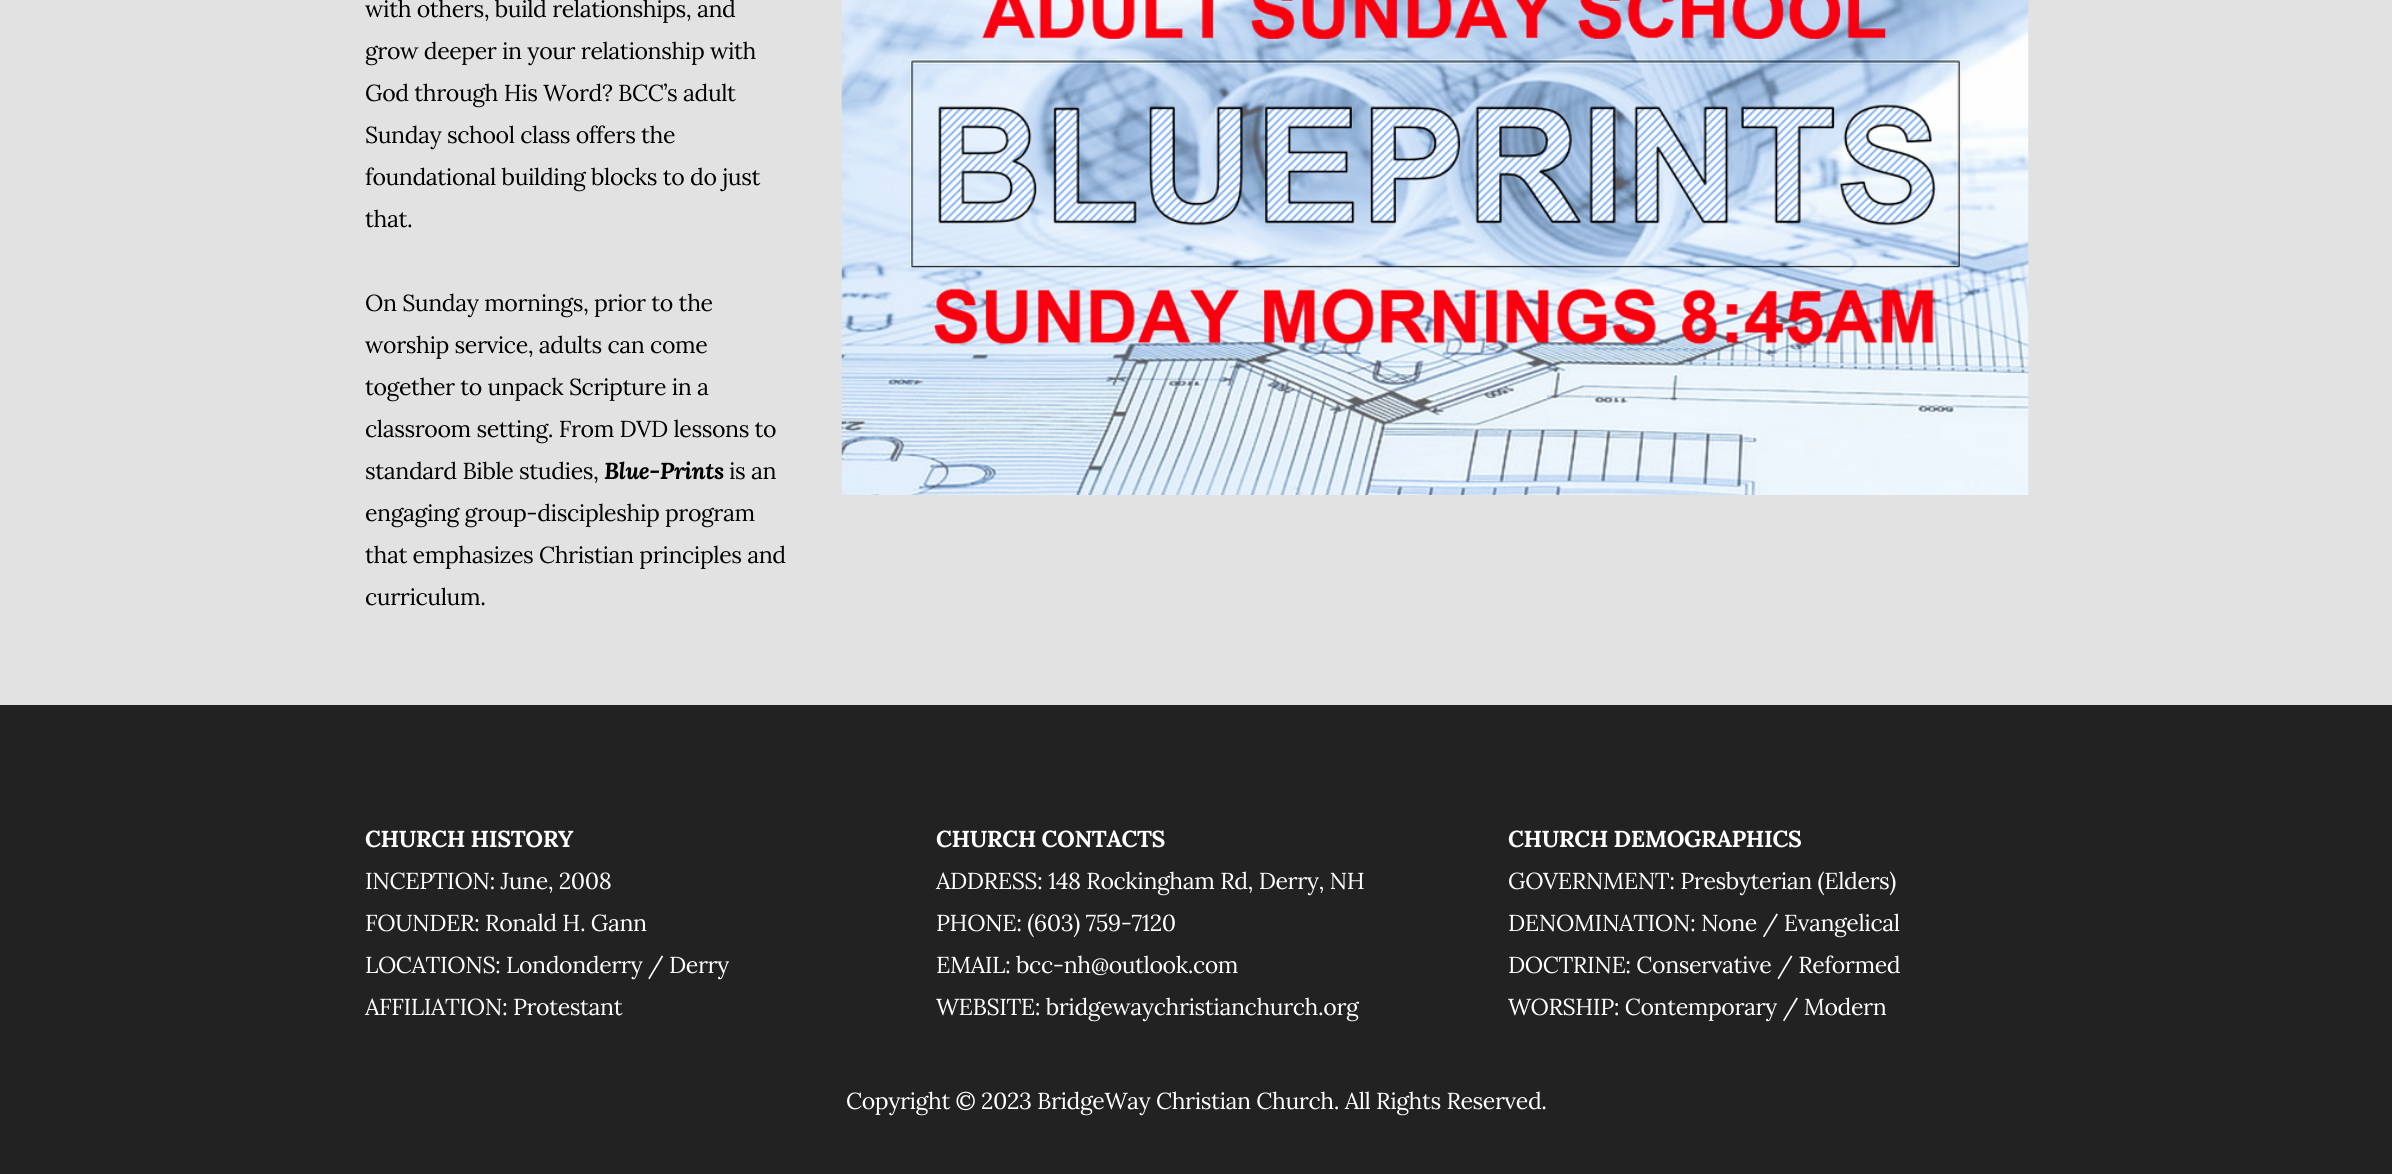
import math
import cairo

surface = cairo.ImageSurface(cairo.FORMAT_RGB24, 2392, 1174)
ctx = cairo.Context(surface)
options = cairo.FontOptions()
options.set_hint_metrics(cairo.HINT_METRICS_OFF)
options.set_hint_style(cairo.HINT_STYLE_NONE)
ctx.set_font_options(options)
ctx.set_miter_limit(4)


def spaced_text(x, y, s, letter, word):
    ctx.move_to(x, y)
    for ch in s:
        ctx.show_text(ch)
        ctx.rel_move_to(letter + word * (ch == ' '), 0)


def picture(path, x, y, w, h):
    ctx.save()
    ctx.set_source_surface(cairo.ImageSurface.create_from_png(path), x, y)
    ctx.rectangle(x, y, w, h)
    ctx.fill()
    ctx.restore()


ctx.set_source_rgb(0.886, 0.886, 0.886)
ctx.paint()
ctx.select_font_face("Lora")
ctx.set_font_size(23.1)
ctx.set_source_rgb(0, 0, 0)
spaced_text(365, 17, "with others, build relationships, and", -0.42, 0)
spaced_text(365, 59, "grow deeper in your relationship with", -0.42, 0)
spaced_text(365, 101, "God through His Word? BCC’s adult", -0.42, 0)
spaced_text(365, 143, "Sunday school class offers the", -0.42, 0)
spaced_text(365, 185, "foundational building blocks to do just", -0.42, 0)
spaced_text(365, 227, "that.", -0.42, 0)
spaced_text(365, 311, "On Sunday mornings, prior to the", -0.42, 0)
spaced_text(365, 353, "worship service, adults can come", -0.42, 0)
spaced_text(365, 395, "together to unpack Scripture in a", -0.42, 0)
spaced_text(365, 437, "classroom setting. From DVD lessons to", -0.42, 0)
spaced_text(365, 479, "standard Bible studies,", -0.42, 0)
ctx.select_font_face("Lora", cairo.FONT_SLANT_ITALIC, cairo.FONT_WEIGHT_BOLD)
spaced_text(604, 479, "Blue-Prints", -0.42, 0)
ctx.select_font_face("Lora")
spaced_text(729, 479, "is an", -0.42, 0)
spaced_text(365, 521, "engaging group-discipleship program", -0.42, 0)
spaced_text(365, 563, "that emphasizes Christian principles and", -0.42, 0)
spaced_text(365, 605, "curriculum.", -0.42, 0)
picture("img1.png", 841, 0, 1188, 495)
ctx.set_source_rgb(0.133, 0.133, 0.133)
ctx.rectangle(0, 705, 2392, 469)
ctx.fill()
ctx.select_font_face("Lora", cairo.FONT_SLANT_NORMAL, cairo.FONT_WEIGHT_BOLD)
ctx.set_source_rgb(1, 1, 1)
spaced_text(365, 847, "CHURCH HISTORY", -0.42, 0)
ctx.select_font_face("Lora")
spaced_text(365, 889, "INCEPTION: June, 2008", -0.42, 0)
spaced_text(365, 931, "FOUNDER: Ronald H. Gann", -0.42, 0)
spaced_text(365, 973, "LOCATIONS: Londonderry / Derry", -0.42, 0)
spaced_text(365, 1015, "AFFILIATION: Protestant", -0.42, 0)
ctx.select_font_face("Lora", cairo.FONT_SLANT_NORMAL, cairo.FONT_WEIGHT_BOLD)
spaced_text(936, 847, "CHURCH CONTACTS", -0.42, 0)
ctx.select_font_face("Lora")
spaced_text(936, 889, "ADDRESS: 148 Rockingham Rd, Derry, NH", -0.42, 0)
spaced_text(936, 931, "PHONE: (603) 759-7120", -0.42, 0)
spaced_text(936, 973, "EMAIL: bcc-nh@outlook.com", -0.42, 0)
spaced_text(936, 1015, "WEBSITE: bridgewaychristianchurch.org", -0.42, 0)
ctx.select_font_face("Lora", cairo.FONT_SLANT_NORMAL, cairo.FONT_WEIGHT_BOLD)
spaced_text(1508, 847, "CHURCH DEMOGRAPHICS", -0.42, 0)
ctx.select_font_face("Lora")
spaced_text(1508, 889, "GOVERNMENT: Presbyterian (Elders)", -0.42, 0)
spaced_text(1508, 931, "DENOMINATION: None / Evangelical", -0.42, 0)
spaced_text(1508, 973, "DOCTRINE: Conservative / Reformed", -0.42, 0)
spaced_text(1508, 1015, "WORSHIP: Contemporary / Modern", -0.42, 0)
spaced_text(846, 1109, "Copyright © 2023 BridgeWay Christian Church. All Rights Reserved.", -0.42, 0)
surface.write_to_png("page.png")
